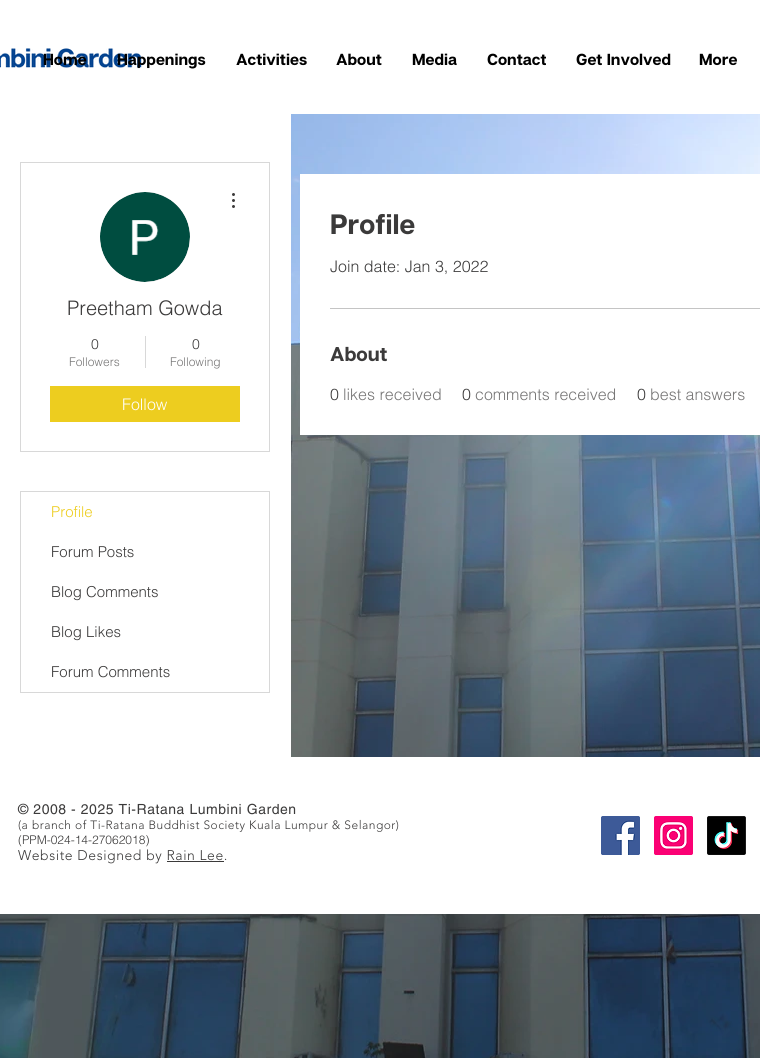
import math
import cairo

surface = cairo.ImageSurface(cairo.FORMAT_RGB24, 760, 1058)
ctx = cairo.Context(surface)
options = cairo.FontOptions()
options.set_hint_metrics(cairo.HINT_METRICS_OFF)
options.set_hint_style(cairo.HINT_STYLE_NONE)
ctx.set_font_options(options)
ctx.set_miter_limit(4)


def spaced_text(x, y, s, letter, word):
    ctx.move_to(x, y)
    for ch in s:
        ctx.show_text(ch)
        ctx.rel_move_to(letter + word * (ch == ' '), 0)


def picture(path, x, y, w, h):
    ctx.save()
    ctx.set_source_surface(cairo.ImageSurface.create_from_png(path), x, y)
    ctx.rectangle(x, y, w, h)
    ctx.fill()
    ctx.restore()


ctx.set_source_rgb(1, 1, 1)
ctx.paint()
picture("img1.png", 0, 48, 142, 20)
ctx.select_font_face("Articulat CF", cairo.FONT_SLANT_NORMAL, cairo.FONT_WEIGHT_BOLD)
ctx.set_font_size(16)
ctx.set_source_rgb(0, 0, 0)
ctx.move_to(43, 65)
ctx.show_text("Home")
ctx.move_to(117, 65)
ctx.show_text("Happenings")
ctx.move_to(236, 65)
ctx.show_text("Activities")
ctx.move_to(336, 65)
ctx.show_text("About")
ctx.move_to(412, 65)
ctx.show_text("Media")
ctx.move_to(487, 65)
ctx.show_text("Contact")
ctx.move_to(576, 65)
ctx.show_text("Get Involved")
ctx.move_to(699, 65)
ctx.show_text("More")
picture("img7.png", 0, 114, 760, 944)
ctx.set_source_rgb(1, 1, 1)
ctx.rectangle(0, 114, 291, 643)
ctx.fill()
ctx.rectangle(20.5, 162.5, 249, 289)
ctx.set_source_rgb(0.847, 0.847, 0.847)
ctx.set_line_width(1)
ctx.stroke()
ctx.arc(145, 237, 45, 0, 2 * math.pi)
ctx.fill()
picture("img2.png", 100, 192, 90, 90)
picture("img3.png", 232, 193, 3, 15)
ctx.select_font_face("helvetica Light")
ctx.set_font_size(20)
ctx.set_source_rgb(0.231, 0.227, 0.227)
ctx.move_to(67, 315)
ctx.show_text("Preetham Gowda")
ctx.set_font_size(14)
ctx.move_to(91, 349)
ctx.show_text("0")
ctx.set_font_size(12)
ctx.set_source_rgb(0.463, 0.459, 0.459)
ctx.move_to(69, 366)
ctx.show_text("Followers")
ctx.set_source_rgb(0.847, 0.847, 0.847)
ctx.rectangle(145, 336, 1, 32)
ctx.fill()
ctx.set_font_size(14)
ctx.set_source_rgb(0.231, 0.227, 0.227)
ctx.move_to(192, 349)
ctx.show_text("0")
ctx.set_font_size(12)
ctx.set_source_rgb(0.463, 0.459, 0.459)
ctx.move_to(170, 366)
ctx.show_text("Following")
ctx.set_source_rgb(0.929, 0.804, 0.122)
ctx.rectangle(50, 386, 190, 36)
ctx.fill()
ctx.set_font_size(16)
ctx.set_source_rgb(1, 1, 1)
ctx.move_to(122, 410)
ctx.show_text("Follow")
ctx.rectangle(20.5, 491.5, 249, 201)
ctx.set_source_rgb(0.847, 0.847, 0.847)
ctx.stroke()
ctx.set_font_size(15)
ctx.set_source_rgb(0.929, 0.804, 0.122)
ctx.move_to(51, 517)
ctx.show_text("Profile")
ctx.set_source_rgb(0.231, 0.227, 0.227)
ctx.move_to(51, 557)
ctx.show_text("Forum Posts")
ctx.move_to(51, 597)
ctx.show_text("Blog Comments")
ctx.move_to(51, 637)
ctx.show_text("Blog Likes")
ctx.move_to(51, 677)
ctx.show_text("Forum Comments")
ctx.set_source_rgb(1, 1, 1)
ctx.rectangle(300, 174, 460, 261)
ctx.fill()
ctx.select_font_face("Articulat CF", cairo.FONT_SLANT_NORMAL, cairo.FONT_WEIGHT_BOLD)
ctx.set_font_size(28)
ctx.set_source_rgb(0.231, 0.227, 0.227)
ctx.move_to(330, 234)
ctx.show_text("Profile")
ctx.select_font_face("helvetica Light")
ctx.set_font_size(16)
ctx.move_to(330, 272)
ctx.show_text("Join date: Jan 3, 2022")
ctx.set_source_rgb(0.769, 0.769, 0.769)
ctx.rectangle(330, 308, 430, 1)
ctx.fill()
ctx.select_font_face("Articulat CF", cairo.FONT_SLANT_NORMAL, cairo.FONT_WEIGHT_BOLD)
ctx.set_font_size(20)
ctx.set_source_rgb(0.231, 0.227, 0.227)
ctx.move_to(330, 361)
ctx.show_text("About")
ctx.select_font_face("helvetica Light")
ctx.set_font_size(16)
ctx.move_to(330, 400)
ctx.show_text("0")
ctx.set_source_rgb(0.463, 0.459, 0.459)
ctx.move_to(343, 400)
ctx.show_text("likes received")
ctx.set_source_rgb(0.231, 0.227, 0.227)
ctx.move_to(462, 400)
ctx.show_text("0")
ctx.set_source_rgb(0.463, 0.459, 0.459)
ctx.move_to(475, 400)
ctx.show_text("comments received")
ctx.set_source_rgb(0.231, 0.227, 0.227)
ctx.move_to(637, 400)
ctx.show_text("0")
ctx.set_source_rgb(0.463, 0.459, 0.459)
ctx.move_to(650, 400)
ctx.show_text("best answers")
ctx.set_source_rgb(1, 1, 1)
ctx.rectangle(0, 757, 760, 157)
ctx.fill()
ctx.select_font_face("helvetica")
ctx.set_font_size(14)
ctx.set_source_rgb(0.231, 0.227, 0.227)
spaced_text(18, 814, "© 2008 - 2025 Ti-Ratana Lumbini Garden", 0.55, 0)
ctx.select_font_face("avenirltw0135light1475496 Light")
ctx.set_font_size(12)
spaced_text(18, 829, "(a branch of Ti-Ratana Buddhist Society Kuala Lumpur & Selangor)", 0.48, 0)
ctx.select_font_face("helvetica Light")
ctx.move_to(18, 844)
ctx.show_text("(PPM-024-14-27062018)")
ctx.select_font_face("avenirltw0135light1475496 Light")
ctx.set_font_size(14)
spaced_text(18, 860, "Website Designed by Rain Lee.", 0.55, 0)
ctx.rectangle(167, 861, 57, 1)
ctx.fill()
picture("img4.png", 601, 816, 39, 39)
picture("img5.png", 654, 816, 39, 39)
picture("img6.png", 707, 816, 39, 39)
surface.write_to_png("page.png")
